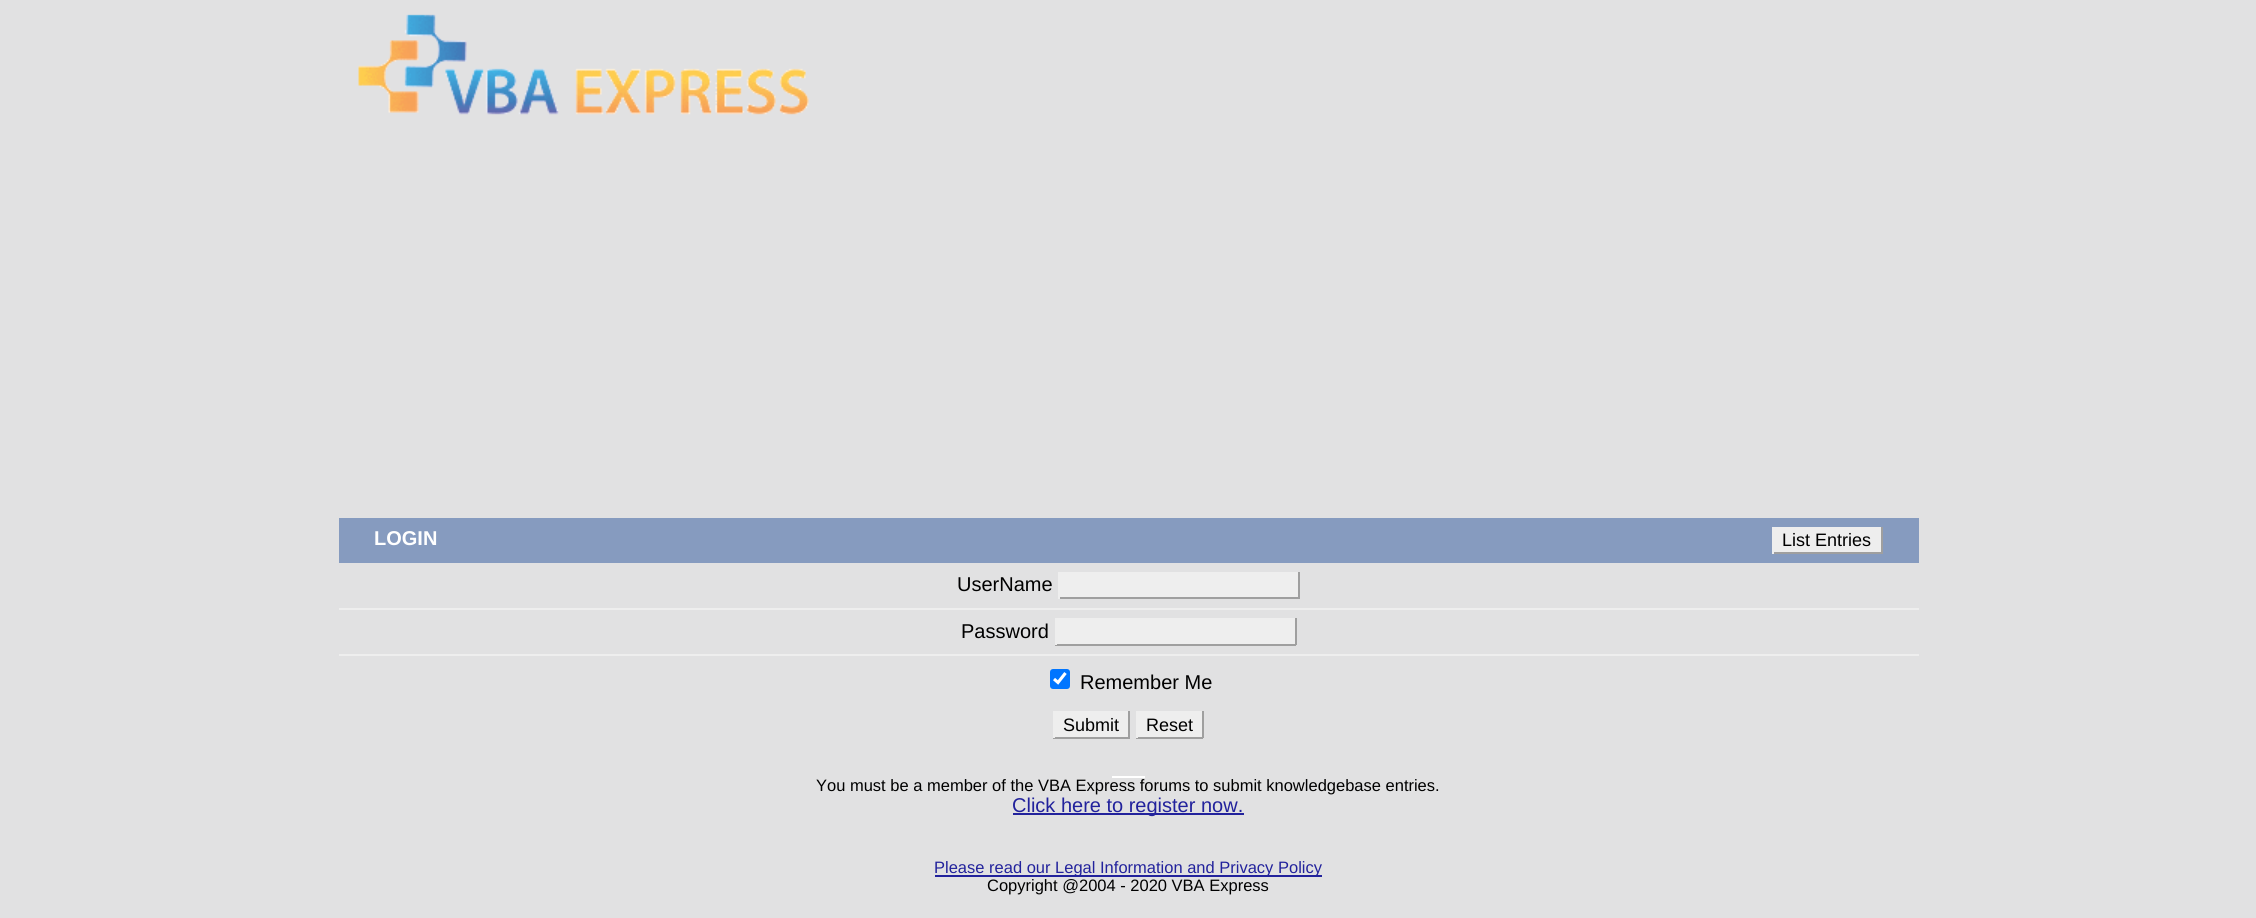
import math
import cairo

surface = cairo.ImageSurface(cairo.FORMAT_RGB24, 2256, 918)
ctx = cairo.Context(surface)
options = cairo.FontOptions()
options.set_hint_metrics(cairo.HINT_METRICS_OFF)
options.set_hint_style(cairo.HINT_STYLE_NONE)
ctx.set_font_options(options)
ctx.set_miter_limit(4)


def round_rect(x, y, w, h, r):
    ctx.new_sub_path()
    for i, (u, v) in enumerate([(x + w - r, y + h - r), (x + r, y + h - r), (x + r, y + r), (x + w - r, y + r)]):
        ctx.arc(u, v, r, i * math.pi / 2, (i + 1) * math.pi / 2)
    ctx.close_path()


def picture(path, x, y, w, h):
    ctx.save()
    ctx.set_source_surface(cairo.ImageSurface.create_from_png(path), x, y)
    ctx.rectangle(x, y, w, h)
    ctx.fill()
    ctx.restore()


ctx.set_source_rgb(0.882, 0.882, 0.886)
ctx.paint()
picture("img1.png", 358, 14, 451, 101)
ctx.set_source_rgb(0.525, 0.608, 0.749)
ctx.rectangle(339, 518, 1580, 45)
ctx.fill()
ctx.select_font_face("Liberation Sans", cairo.FONT_SLANT_NORMAL, cairo.FONT_WEIGHT_BOLD)
ctx.set_font_size(20)
ctx.set_source_rgb(1, 1, 1)
ctx.move_to(374, 545)
ctx.show_text("LOGIN")
ctx.set_source_rgb(0.933, 0.933, 0.933)
ctx.rectangle(1774, 527, 107, 25)
ctx.fill()
ctx.set_source_rgb(0.624, 0.624, 0.624)
ctx.rectangle(1881, 527, 2, 27)
ctx.fill()
ctx.rectangle(1772, 552, 111, 2)
ctx.fill()
ctx.set_source_rgb(0.933, 0.933, 0.933)
ctx.rectangle(1772, 527, 2, 27)
ctx.fill()
ctx.select_font_face("Liberation Sans")
ctx.set_font_size(18)
ctx.set_source_rgb(0, 0, 0)
ctx.move_to(1782, 546)
ctx.show_text("List Entries")
ctx.set_source_rgb(0.933, 0.933, 0.933)
ctx.rectangle(339, 608, 1580, 2)
ctx.fill()
ctx.set_font_size(20)
ctx.set_source_rgb(0, 0, 0)
ctx.move_to(957, 591)
ctx.show_text("UserName")
ctx.set_source_rgb(0.933, 0.933, 0.933)
ctx.rectangle(1060, 572, 238, 25)
ctx.fill()
ctx.set_source_rgb(0.624, 0.624, 0.624)
ctx.rectangle(1298, 572, 2, 27)
ctx.fill()
ctx.rectangle(1058, 597, 241, 2)
ctx.fill()
ctx.set_source_rgb(0.933, 0.933, 0.933)
ctx.rectangle(1058, 572, 2, 27)
ctx.fill()
ctx.rectangle(339, 654, 1580, 2)
ctx.fill()
ctx.set_source_rgb(0, 0, 0)
ctx.move_to(961, 638)
ctx.show_text("Password")
ctx.set_source_rgb(0.933, 0.933, 0.933)
ctx.rectangle(1057, 618, 238, 26)
ctx.fill()
ctx.set_source_rgb(0.624, 0.624, 0.624)
ctx.rectangle(1295, 618, 2, 27)
ctx.fill()
ctx.rectangle(1055, 644, 241, 2)
ctx.fill()
ctx.set_source_rgb(0.933, 0.933, 0.933)
ctx.rectangle(1055, 618, 2, 27)
ctx.fill()
ctx.set_source_rgb(0, 0.459, 1)
round_rect(1050, 669, 20, 20, 3)
ctx.fill()
ctx.new_path()
ctx.move_to(1054, 679)
ctx.line_to(1058, 682.5)
ctx.line_to(1065.5, 673)
ctx.set_source_rgb(1, 1, 1)
ctx.set_line_width(3.1)
ctx.stroke()
ctx.set_source_rgb(0, 0, 0)
ctx.move_to(1080, 689)
ctx.show_text("Remember Me")
ctx.set_source_rgb(0.933, 0.933, 0.933)
ctx.rectangle(1055, 711, 73, 26)
ctx.fill()
ctx.set_source_rgb(0.624, 0.624, 0.624)
ctx.rectangle(1128, 711, 2, 27)
ctx.fill()
ctx.rectangle(1053, 737, 77, 2)
ctx.fill()
ctx.set_source_rgb(0.933, 0.933, 0.933)
ctx.rectangle(1053, 711, 2, 27)
ctx.fill()
ctx.set_font_size(18)
ctx.set_source_rgb(0, 0, 0)
ctx.move_to(1063, 731)
ctx.show_text("Submit")
ctx.set_source_rgb(0.933, 0.933, 0.933)
ctx.rectangle(1138, 711, 64, 26)
ctx.fill()
ctx.set_source_rgb(0.624, 0.624, 0.624)
ctx.rectangle(1202, 711, 2, 27)
ctx.fill()
ctx.rectangle(1136, 737, 67, 2)
ctx.fill()
ctx.set_source_rgb(0.933, 0.933, 0.933)
ctx.rectangle(1136, 711, 2, 27)
ctx.fill()
ctx.set_source_rgb(0, 0, 0)
ctx.move_to(1146, 731)
ctx.show_text("Reset")
ctx.set_source_rgb(1, 1, 1)
ctx.rectangle(1112, 776, 33, 2)
ctx.fill()
ctx.set_font_size(16.5)
ctx.set_source_rgb(0, 0, 0)
ctx.move_to(816, 791)
ctx.show_text("You must be a member of the VBA Express forums to submit knowledgebase entries.")
ctx.set_source_rgb(0.133, 0.133, 0.612)
ctx.rectangle(1013, 813, 231, 2)
ctx.fill()
ctx.set_font_size(20)
ctx.move_to(1012, 812)
ctx.show_text("Click here to register now.")
ctx.rectangle(935, 875, 387, 2)
ctx.fill()
ctx.set_font_size(16.5)
ctx.move_to(934, 873)
ctx.show_text("Please read our Legal Information and Privacy Policy")
ctx.set_source_rgb(0, 0, 0)
ctx.move_to(987, 891)
ctx.show_text("Copyright @2004 - 2020 VBA Express")
surface.write_to_png("page.png")
